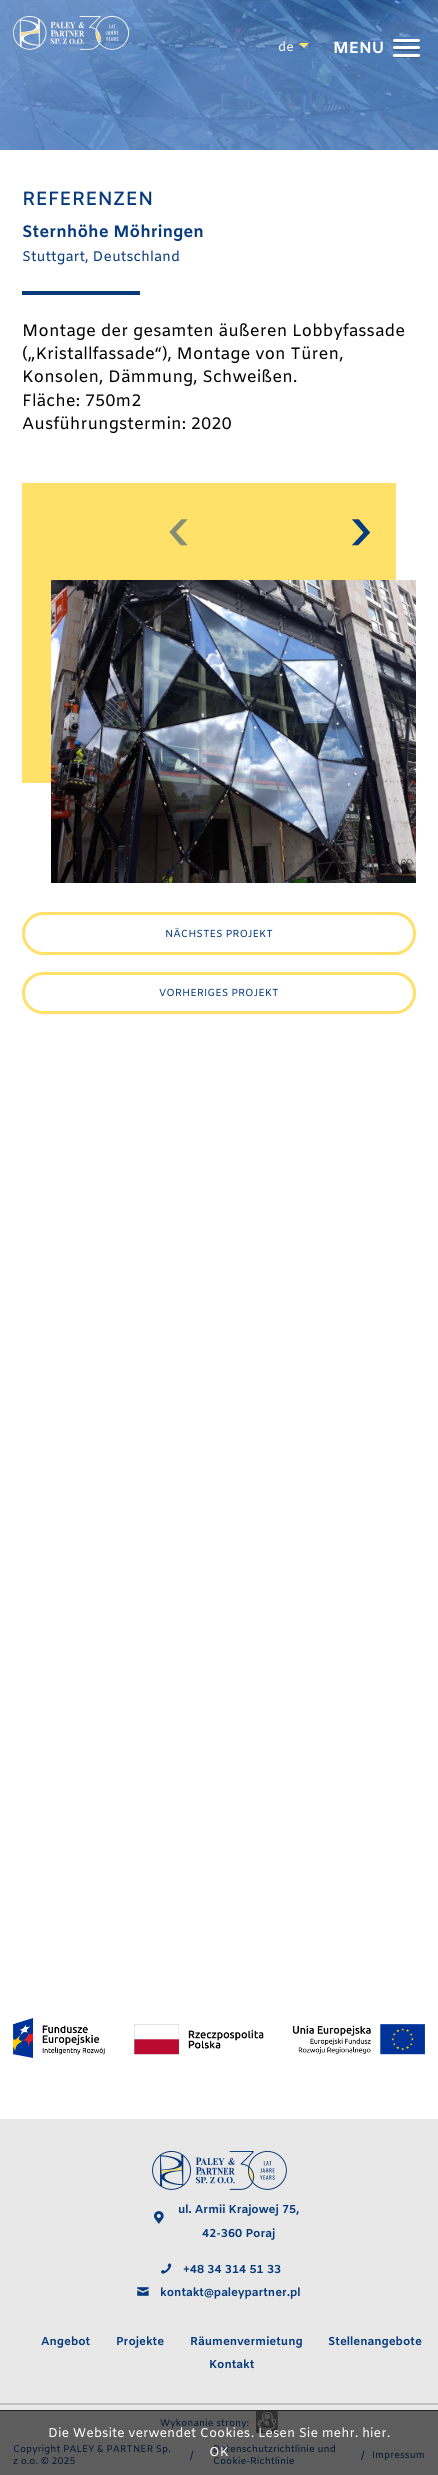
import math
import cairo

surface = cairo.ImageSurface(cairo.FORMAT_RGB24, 438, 2475)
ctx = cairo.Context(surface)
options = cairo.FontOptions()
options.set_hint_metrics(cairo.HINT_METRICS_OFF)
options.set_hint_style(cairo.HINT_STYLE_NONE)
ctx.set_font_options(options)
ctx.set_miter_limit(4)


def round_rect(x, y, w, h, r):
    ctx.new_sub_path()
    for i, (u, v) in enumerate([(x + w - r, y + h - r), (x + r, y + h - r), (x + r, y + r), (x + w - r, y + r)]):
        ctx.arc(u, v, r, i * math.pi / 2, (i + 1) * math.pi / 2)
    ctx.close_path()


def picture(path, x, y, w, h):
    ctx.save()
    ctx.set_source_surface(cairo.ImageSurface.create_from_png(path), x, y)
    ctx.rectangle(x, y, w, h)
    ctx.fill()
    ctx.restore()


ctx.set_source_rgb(1, 1, 1)
ctx.paint()
picture("img1.png", 0, 0, 438, 150)
picture("img2.png", 13, 16, 116, 34)
ctx.select_font_face("Amiko")
ctx.set_font_size(12.75)
ctx.set_source_rgb(1, 1, 1)
ctx.move_to(278, 51)
ctx.show_text("de")
ctx.set_source_rgb(1, 0.878, 0.412)
ctx.new_path()
ctx.move_to(299, 43)
ctx.line_to(309, 43)
ctx.line_to(304, 48)
ctx.close_path()
ctx.fill()
ctx.select_font_face("Amiko", cairo.FONT_SLANT_NORMAL, cairo.FONT_WEIGHT_BOLD)
ctx.set_font_size(16)
ctx.set_source_rgb(1, 1, 1)
ctx.move_to(333, 53)
ctx.show_text("MENU")
ctx.set_source_rgba(0, 0, 0, 0.25)
ctx.new_path()
ctx.move_to(393, 41)
ctx.curve_to(392.5, 44, 398, 43, 398.5, 43)
ctx.line_to(414.5, 43)
ctx.curve_to(415, 43, 419.5, 44, 420, 42)
ctx.line_to(419.5, 40.5)
ctx.line_to(418.5, 41.5)
ctx.line_to(394, 41.5)
ctx.close_path()
ctx.fill()
ctx.set_source_rgb(1, 1, 1)
round_rect(393, 39, 27, 3, 1.5)
ctx.fill()
ctx.set_source_rgba(0, 0, 0, 0.25)
ctx.new_path()
ctx.move_to(393, 49)
ctx.curve_to(391.5, 52, 398.5, 51, 398.5, 51)
ctx.line_to(414.5, 51)
ctx.curve_to(415, 51, 419.5, 52, 420, 50)
ctx.line_to(419.5, 48.5)
ctx.line_to(418.5, 49)
ctx.curve_to(416, 49.5, 394, 49.5, 393, 49)
ctx.close_path()
ctx.fill()
ctx.set_source_rgb(1, 1, 1)
round_rect(393, 46, 27, 3, 1.5)
ctx.fill()
ctx.set_source_rgba(0, 0, 0, 0.25)
ctx.new_path()
ctx.move_to(393, 56)
ctx.curve_to(392.5, 59, 398, 58, 398.5, 58)
ctx.line_to(414.5, 58)
ctx.curve_to(415, 58, 419.5, 59, 420, 57)
ctx.line_to(419.5, 55.5)
ctx.line_to(418.5, 56.5)
ctx.line_to(394, 56.5)
ctx.close_path()
ctx.fill()
ctx.set_source_rgb(1, 1, 1)
round_rect(393, 54, 27, 3, 1.5)
ctx.fill()
ctx.select_font_face("Amiko SemiBold")
ctx.set_font_size(19.25)
ctx.set_source_rgb(0.031, 0.231, 0.486)
ctx.move_to(22, 205)
ctx.show_text("REFERENZEN")
ctx.select_font_face("Amiko", cairo.FONT_SLANT_NORMAL, cairo.FONT_WEIGHT_BOLD)
ctx.set_font_size(16.6)
ctx.move_to(22, 237)
ctx.show_text("Sternhöhe Möhringen")
ctx.select_font_face("Amiko")
ctx.set_font_size(14)
ctx.move_to(22, 261)
ctx.show_text("Stuttgart, Deutschland")
ctx.rectangle(22, 291, 118, 4)
ctx.fill()
ctx.set_font_size(16.6)
ctx.set_source_rgb(0, 0, 0)
ctx.move_to(22, 336)
ctx.show_text("Montage der gesamten äußeren Lobbyfassade")
ctx.move_to(22, 359)
ctx.show_text("(„Kristallfassade“), Montage von Türen,")
ctx.move_to(22, 382)
ctx.show_text("Konsolen, Dämmung, Schweißen.")
ctx.move_to(22, 406)
ctx.show_text("Fläche: 750m2")
ctx.move_to(22, 429)
ctx.show_text("Ausführungstermin: 2020")
ctx.set_source_rgb(1, 0.878, 0.412)
ctx.rectangle(22, 483, 374, 300)
ctx.fill()
ctx.set_font_size(64)
ctx.set_source_rgb(0.518, 0.557, 0.451)
ctx.move_to(168, 549)
ctx.show_text("‹")
ctx.set_source_rgb(0.031, 0.231, 0.486)
ctx.move_to(349, 549)
ctx.show_text("›")
picture("img3.png", 51, 580, 365, 303)
round_rect(23.5, 913.5, 391, 40, 20)
ctx.set_source_rgb(1, 0.878, 0.412)
ctx.set_line_width(3)
ctx.stroke()
ctx.set_font_size(10.25)
ctx.set_source_rgb(0.031, 0.231, 0.486)
ctx.move_to(165, 937)
ctx.show_text("NÄCHSTES PROJEKT")
round_rect(23.5, 973.5, 391, 39, 19.5)
ctx.set_source_rgb(1, 0.878, 0.412)
ctx.stroke()
ctx.set_source_rgb(0.031, 0.231, 0.486)
ctx.move_to(159, 996)
ctx.show_text("VORHERIGES PROJEKT")
picture("img4.png", 13, 2018, 412, 40)
ctx.set_source_rgb(0.91, 0.91, 0.91)
ctx.rectangle(0, 2119, 438, 291)
ctx.fill()
ctx.set_source_rgb(0.365, 0.365, 0.365)
ctx.rectangle(0, 2411, 438, 64)
ctx.fill()
picture("img5.png", 152, 2151, 135, 39)
picture("img6.png", 154, 2211, 10, 13)
ctx.select_font_face("Amiko", cairo.FONT_SLANT_NORMAL, cairo.FONT_WEIGHT_BOLD)
ctx.set_font_size(11.5)
ctx.set_source_rgb(0.031, 0.231, 0.486)
ctx.move_to(178, 2213)
ctx.show_text("ul. Armii Krajowej 75,")
ctx.move_to(202, 2237)
ctx.show_text("42-360 Poraj")
picture("img7.png", 161, 2263, 11, 11)
ctx.move_to(183, 2273)
ctx.show_text("+48 34 314 51 33")
picture("img8.png", 137, 2287, 12, 9)
ctx.move_to(160, 2296)
ctx.show_text("kontakt@paleypartner.pl")
ctx.move_to(41, 2345)
ctx.show_text("Angebot")
ctx.move_to(116, 2345)
ctx.show_text("Projekte")
ctx.move_to(190, 2345)
ctx.show_text("Räumenvermietung")
ctx.move_to(328, 2345)
ctx.show_text("Stellenangebote")
ctx.move_to(209, 2368)
ctx.show_text("Kontakt")
ctx.set_source_rgb(0.761, 0.761, 0.761)
ctx.rectangle(0, 2403, 438, 2)
ctx.fill()
ctx.select_font_face("Amiko")
ctx.set_font_size(9.6)
ctx.set_source_rgb(0.012, 0.094, 0.196)
ctx.move_to(160, 2426)
ctx.show_text("Wykonanie strony:")
picture("img9.png", 256, 2411, 22, 22)
ctx.move_to(13, 2452)
ctx.show_text("Copyright PALEY & PARTNER Sp.")
ctx.move_to(190, 2458)
ctx.show_text("/")
ctx.move_to(213, 2452)
ctx.show_text("Datenschutzrichtlinie und")
ctx.move_to(213, 2464)
ctx.show_text("Cookie-Richtlinie")
ctx.move_to(361, 2458)
ctx.show_text("/")
ctx.move_to(372, 2458)
ctx.show_text("Impressum")
ctx.move_to(13, 2464)
ctx.show_text("z o.o. © 2025")
ctx.set_source_rgb(0.145, 0.145, 0.145)
ctx.rectangle(0, 2410, 438, 1)
ctx.fill()
ctx.set_font_size(12.75)
ctx.set_source_rgb(1, 1, 1)
ctx.move_to(48, 2437)
ctx.show_text("Die Website verwendet Cookies")
ctx.move_to(251, 2437)
ctx.show_text(". Lesen Sie mehr")
ctx.move_to(355, 2437)
ctx.show_text(". hier")
ctx.move_to(387, 2437)
ctx.show_text(".")
ctx.move_to(209, 2456)
ctx.show_text("OK")
surface.write_to_png("page.png")
